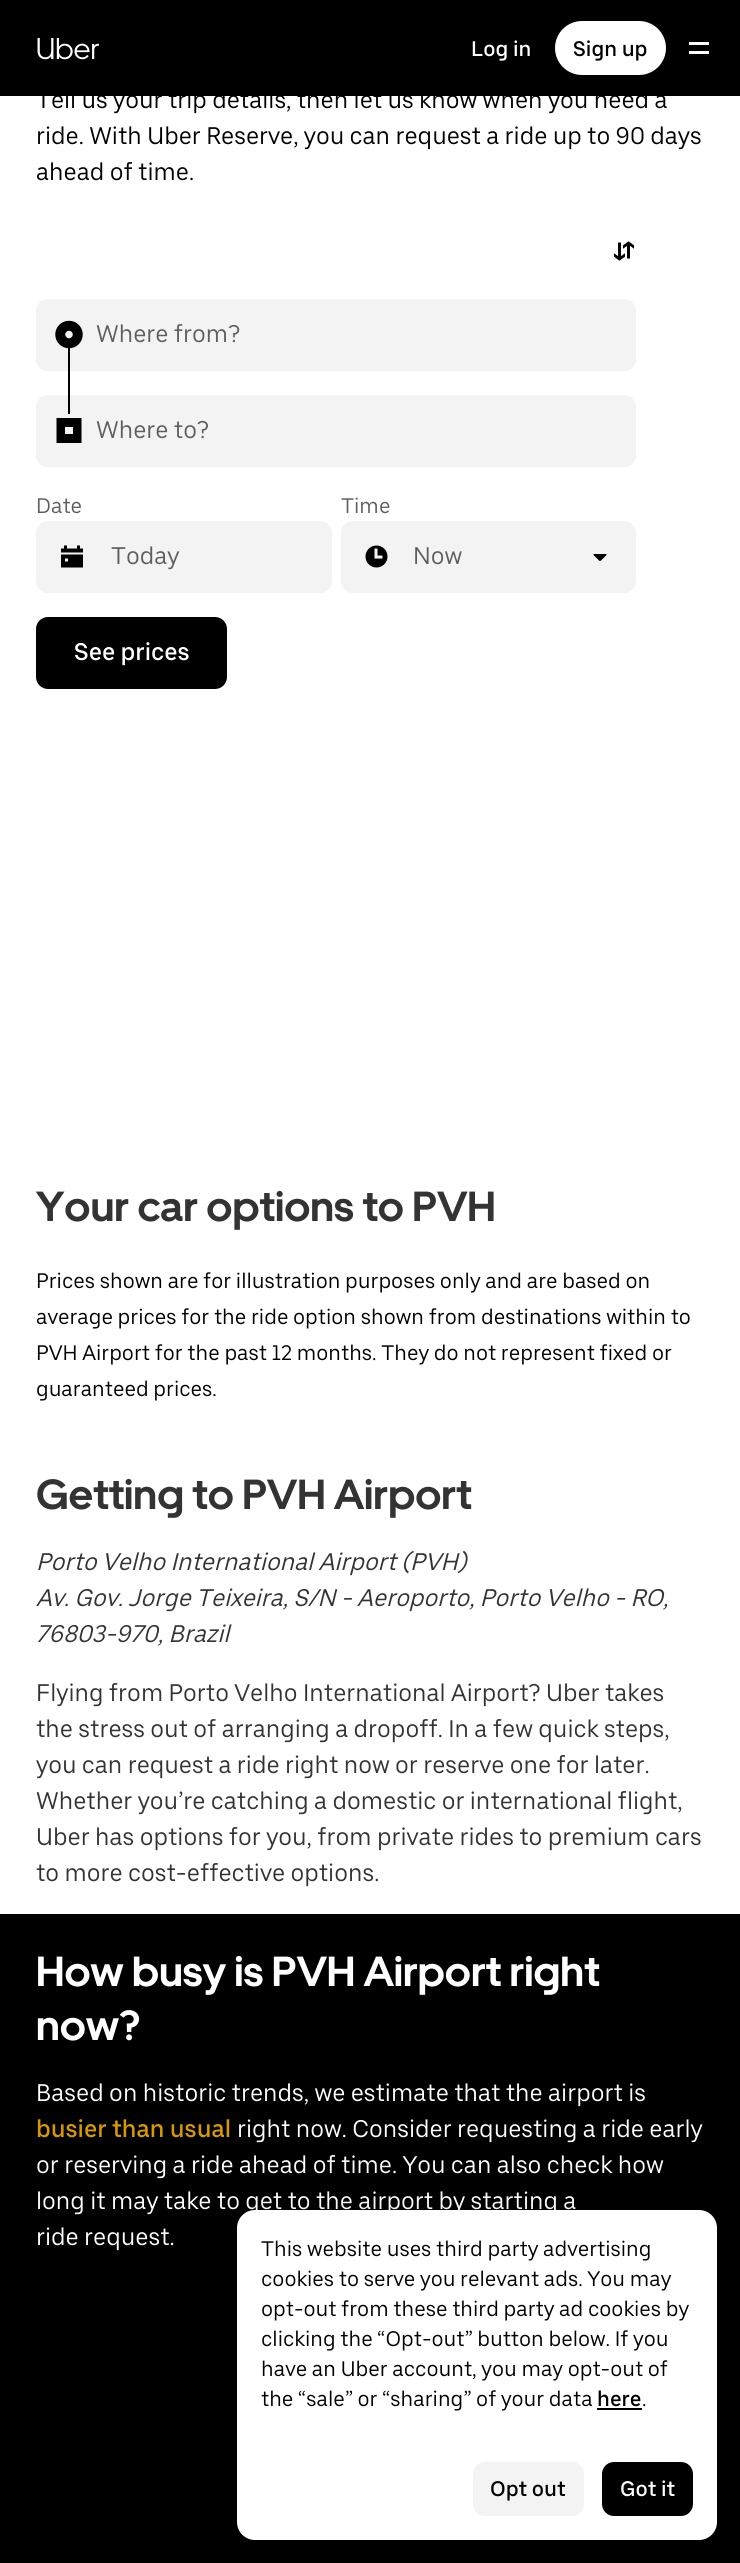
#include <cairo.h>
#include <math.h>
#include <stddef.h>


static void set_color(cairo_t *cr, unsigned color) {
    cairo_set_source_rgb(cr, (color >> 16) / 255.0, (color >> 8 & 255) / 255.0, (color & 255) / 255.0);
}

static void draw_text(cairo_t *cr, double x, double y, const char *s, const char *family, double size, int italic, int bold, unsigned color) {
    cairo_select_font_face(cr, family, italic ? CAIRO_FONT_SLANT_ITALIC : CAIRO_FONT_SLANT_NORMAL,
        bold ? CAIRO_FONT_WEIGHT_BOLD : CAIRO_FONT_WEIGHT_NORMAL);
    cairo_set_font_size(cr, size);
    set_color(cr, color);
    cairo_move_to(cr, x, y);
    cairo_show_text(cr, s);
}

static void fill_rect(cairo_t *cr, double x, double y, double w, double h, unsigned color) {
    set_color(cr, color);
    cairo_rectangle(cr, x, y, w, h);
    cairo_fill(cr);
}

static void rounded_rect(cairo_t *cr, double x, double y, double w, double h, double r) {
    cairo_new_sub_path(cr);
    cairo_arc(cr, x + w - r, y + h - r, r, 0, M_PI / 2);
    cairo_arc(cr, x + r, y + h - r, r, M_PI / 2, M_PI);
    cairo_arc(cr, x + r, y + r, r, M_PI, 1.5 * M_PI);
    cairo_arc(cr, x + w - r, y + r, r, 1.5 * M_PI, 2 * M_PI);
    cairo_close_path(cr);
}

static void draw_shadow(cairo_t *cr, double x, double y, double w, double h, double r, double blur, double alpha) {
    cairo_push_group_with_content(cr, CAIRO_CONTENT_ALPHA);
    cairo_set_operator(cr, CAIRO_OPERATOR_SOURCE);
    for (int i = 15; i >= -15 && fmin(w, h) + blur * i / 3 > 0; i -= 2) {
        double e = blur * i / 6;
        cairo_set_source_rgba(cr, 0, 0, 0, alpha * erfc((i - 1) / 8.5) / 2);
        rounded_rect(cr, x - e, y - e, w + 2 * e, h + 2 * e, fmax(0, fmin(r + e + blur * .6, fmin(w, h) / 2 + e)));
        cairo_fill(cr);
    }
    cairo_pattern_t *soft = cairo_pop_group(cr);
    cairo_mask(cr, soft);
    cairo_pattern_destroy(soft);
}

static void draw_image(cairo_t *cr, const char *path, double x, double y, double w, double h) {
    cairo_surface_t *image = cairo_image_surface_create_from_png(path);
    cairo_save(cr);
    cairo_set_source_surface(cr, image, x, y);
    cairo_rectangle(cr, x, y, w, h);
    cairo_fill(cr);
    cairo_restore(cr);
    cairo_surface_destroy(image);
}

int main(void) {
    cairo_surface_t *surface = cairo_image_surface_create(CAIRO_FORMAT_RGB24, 740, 2563);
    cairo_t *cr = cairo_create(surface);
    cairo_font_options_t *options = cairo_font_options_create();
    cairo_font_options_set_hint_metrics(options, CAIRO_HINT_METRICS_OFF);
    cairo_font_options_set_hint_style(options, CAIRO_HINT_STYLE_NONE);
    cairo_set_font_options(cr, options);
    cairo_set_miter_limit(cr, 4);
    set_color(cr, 0xFFFFFF);
    cairo_paint(cr);
    fill_rect(cr, 0, 0, 740, 96, 0x000000);
    draw_text(cr, 36, 59, "Uber", "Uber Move", 30, 0, 0, 0xFFFFFF);
    draw_text(cr, 471, 56, "Log in", "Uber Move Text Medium", 21, 0, 0, 0xFFFFFF);
    rounded_rect(cr, 555, 21, 111, 54, 27);
    cairo_fill(cr);
    draw_text(cr, 573, 56, "Sign up", "Uber Move Text Medium", 21, 0, 0, 0x000000);
    fill_rect(cr, 689, 42, 20, 3, 0xFFFFFF);
    fill_rect(cr, 689, 51, 20, 3, 0xFFFFFF);
    draw_text(cr, 36, 108, "Tell us your trip details, then let us know when you need a", "Uber Move Text", 24, 0, 0, 0x000000);
    draw_text(cr, 36, 144, "ride. With Uber Reserve, you can request a ride up to 90 days", "Uber Move Text", 24, 0, 0, 0x000000);
    draw_text(cr, 36, 180, "ahead of time.", "Uber Move Text", 24, 0, 0, 0x000000);
    draw_image(cr, "assets/img1.png", 614, 241, 20, 20);
    set_color(cr, 0xF3F3F3);
    rounded_rect(cr, 37.5, 300.5, 597, 69, 10.5);
    cairo_fill_preserve(cr);
    cairo_set_line_width(cr, 3);
    cairo_stroke(cr);
    draw_image(cr, "assets/img2.png", 55, 320, 28, 29);
    draw_text(cr, 96, 342, "Where from?", "Uber Move Text", 24, 0, 0, 0x5E5E5E);
    set_color(cr, 0xF3F3F3);
    rounded_rect(cr, 37.5, 396.5, 597, 69, 10.5);
    cairo_fill_preserve(cr);
    cairo_stroke(cr);
    fill_rect(cr, 68, 348, 2, 66, 0x000000);
    cairo_set_fill_rule(cr, CAIRO_FILL_RULE_EVEN_ODD);
    cairo_new_path(cr);
    cairo_move_to(cr, 81.5, 418);
    cairo_line_to(cr, 56.5, 418);
    cairo_line_to(cr, 56.5, 443);
    cairo_line_to(cr, 81.5, 443);
    cairo_close_path(cr);
    cairo_move_to(cr, 73, 427);
    cairo_line_to(cr, 65, 427);
    cairo_line_to(cr, 65, 434);
    cairo_line_to(cr, 73, 434);
    cairo_close_path(cr);
    cairo_fill(cr);
    draw_text(cr, 96, 438, "Where to?", "Uber Move Text", 24, 0, 0, 0x5E5E5E);
    draw_text(cr, 36, 513, "Date", "Uber Move Text", 21, 0, 0, 0x5E5E5E);
    set_color(cr, 0xF3F3F3);
    rounded_rect(cr, 37.5, 522.5, 293, 69, 10.5);
    cairo_fill_preserve(cr);
    cairo_stroke(cr);
    draw_image(cr, "assets/img3.png", 61, 545, 22, 23);
    draw_text(cr, 111, 564, "Today", "Uber Move Text", 24, 0, 0, 0x5E5E5E);
    draw_text(cr, 341, 513, "Time", "Uber Move Text", 21, 0, 0, 0x5E5E5E);
    set_color(cr, 0xF3F3F3);
    rounded_rect(cr, 342.5, 522.5, 292, 69, 10.5);
    cairo_fill_preserve(cr);
    cairo_stroke(cr);
    draw_image(cr, "assets/img4.png", 365, 545, 23, 23);
    draw_text(cr, 413, 564, "Now", "Uber Move Text", 24, 0, 0, 0x5E5E5E);
    draw_image(cr, "assets/img5.png", 593, 554, 14, 7);
    set_color(cr, 0x000000);
    rounded_rect(cr, 36, 617, 191, 72, 12);
    cairo_fill(cr);
    draw_text(cr, 74, 660, "See prices", "Uber Move Text Medium", 24, 0, 0, 0xFFFFFF);
    draw_text(cr, 36, 1221, "Your car options to PVH", "Uber Move", 42, 0, 1, 0x333333);
    draw_text(cr, 36, 1288, "Prices shown are for illustration purposes only and are based on", "Uber Move Text", 21, 0, 0, 0x000000);
    draw_text(cr, 36, 1324, "average prices for the ride option shown from destinations within to", "Uber Move Text", 21, 0, 0, 0x000000);
    draw_text(cr, 36, 1360, "PVH Airport for the past 12 months. They do not represent fixed or", "Uber Move Text", 21, 0, 0, 0x000000);
    draw_text(cr, 36, 1396, "guaranteed prices.", "Uber Move Text", 21, 0, 0, 0x000000);
    draw_text(cr, 36, 1509, "Getting to PVH Airport", "Uber Move", 42, 0, 1, 0x333333);
    draw_text(cr, 36, 1570, "Porto Velho International Airport (PVH)", "Uber Move Text", 24, 1, 0, 0x333333);
    draw_text(cr, 36, 1606, "Av. Gov. Jorge Teixeira, S/N - Aeroporto, Porto Velho - RO,", "Uber Move Text", 24, 1, 0, 0x333333);
    draw_text(cr, 36, 1642, "76803-970, Brazil", "Uber Move Text", 24, 1, 0, 0x333333);
    draw_text(cr, 36, 1701, "Flying from Porto Velho International Airport? Uber takes", "Uber Move Text", 24, 0, 0, 0x333333);
    draw_text(cr, 36, 1737, "the stress out of arranging a dropoff. In a few quick steps,", "Uber Move Text", 24, 0, 0, 0x333333);
    draw_text(cr, 36, 1773, "you can request a ride right now or reserve one for later.", "Uber Move Text", 24, 0, 0, 0x333333);
    draw_text(cr, 36, 1809, "Whether you’re catching a domestic or international flight,", "Uber Move Text", 24, 0, 0, 0x333333);
    draw_text(cr, 36, 1845, "Uber has options for you, from private rides to premium cars", "Uber Move Text", 24, 0, 0, 0x333333);
    draw_text(cr, 36, 1881, "to more cost-effective options.", "Uber Move Text", 24, 0, 0, 0x333333);
    fill_rect(cr, 0, 1914, 740, 649, 0x000000);
    draw_text(cr, 36, 1986, "How busy is PVH Airport right", "Uber Move", 42, 0, 1, 0xFFFFFF);
    draw_text(cr, 36, 2040, "now?", "Uber Move", 42, 0, 1, 0xFFFFFF);
    draw_text(cr, 36, 2101, "Based on historic trends, we estimate that the airport is", "Uber Move Text", 24, 0, 0, 0xFFFFFF);
    draw_text(cr, 36, 2137, "busier than usual", "Uber Move Text Medium", 24, 0, 0, 0xD79900);
    draw_text(cr, 237, 2137, "right now. Consider requesting a ride early", "Uber Move Text", 24, 0, 0, 0xFFFFFF);
    draw_text(cr, 36, 2173, "or reserving a ride ahead of time. You can also check how", "Uber Move Text", 24, 0, 0, 0xFFFFFF);
    draw_text(cr, 36, 2209, "long it may take to get to the airport by starting a", "Uber Move Text", 24, 0, 0, 0xFFFFFF);
    draw_text(cr, 36, 2245, "ride request.", "Uber Move Text", 24, 0, 0, 0xFFFFFF);
    set_color(cr, 0x000000);
    draw_shadow(cr, 237, 2216, 480, 330, 18, 12, 0.16);
    set_color(cr, 0xFFFFFF);
    rounded_rect(cr, 237, 2210, 480, 330, 18);
    cairo_fill(cr);
    draw_text(cr, 261, 2256, "This website uses third party advertising", "Uber Move Text", 21, 0, 0, 0x000000);
    draw_text(cr, 261, 2286, "cookies to serve you relevant ads. You may", "Uber Move Text", 21, 0, 0, 0x000000);
    draw_text(cr, 261, 2316, "opt-out from these third party ad cookies by", "Uber Move Text", 21, 0, 0, 0x000000);
    draw_text(cr, 261, 2346, "clicking the “Opt-out” button below. If you", "Uber Move Text", 21, 0, 0, 0x000000);
    draw_text(cr, 261, 2376, "have an Uber account, you may opt-out of", "Uber Move Text", 21, 0, 0, 0x000000);
    draw_text(cr, 261, 2406, "the “sale” or “sharing” of your data", "Uber Move Text", 21, 0, 0, 0x000000);
    draw_text(cr, 597, 2406, "here", "Uber Move Text Medium", 21, 0, 0, 0x000000);
    fill_rect(cr, 597, 2408, 45, 2, 0x000000);
    draw_text(cr, 642, 2406, ".", "Uber Move Text", 21, 0, 0, 0x000000);
    set_color(cr, 0xF3F3F3);
    rounded_rect(cr, 473, 2462, 111, 54, 12);
    cairo_fill(cr);
    draw_text(cr, 490, 2496, "Opt out", "Uber Move Text Medium", 21, 0, 0, 0x000000);
    rounded_rect(cr, 602, 2462, 91, 54, 12);
    cairo_fill(cr);
    draw_text(cr, 620, 2496, "Got it", "Uber Move Text Medium", 21, 0, 0, 0xFFFFFF);
    cairo_surface_write_to_png(surface, "output.png");
    cairo_font_options_destroy(options);
    cairo_destroy(cr);
    cairo_surface_destroy(surface);
    return 0;
}
